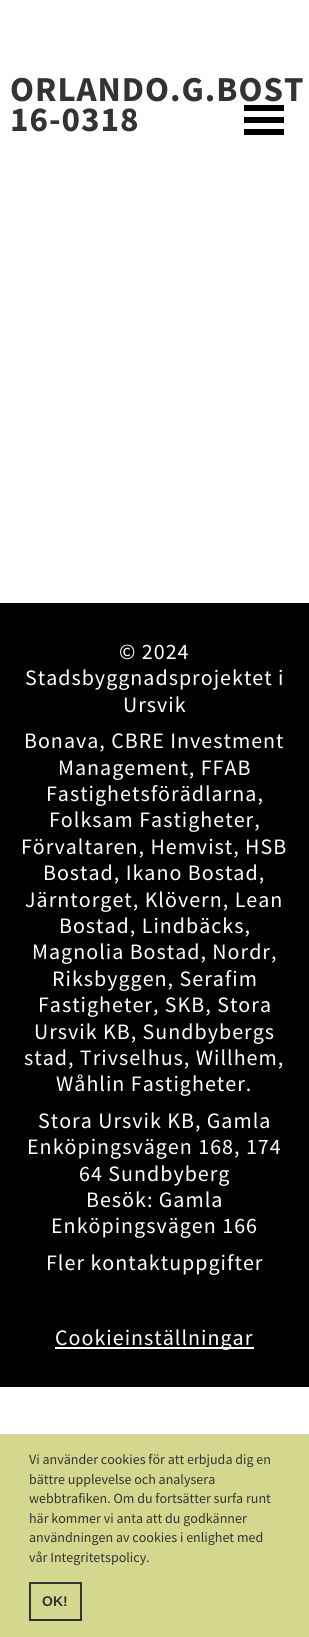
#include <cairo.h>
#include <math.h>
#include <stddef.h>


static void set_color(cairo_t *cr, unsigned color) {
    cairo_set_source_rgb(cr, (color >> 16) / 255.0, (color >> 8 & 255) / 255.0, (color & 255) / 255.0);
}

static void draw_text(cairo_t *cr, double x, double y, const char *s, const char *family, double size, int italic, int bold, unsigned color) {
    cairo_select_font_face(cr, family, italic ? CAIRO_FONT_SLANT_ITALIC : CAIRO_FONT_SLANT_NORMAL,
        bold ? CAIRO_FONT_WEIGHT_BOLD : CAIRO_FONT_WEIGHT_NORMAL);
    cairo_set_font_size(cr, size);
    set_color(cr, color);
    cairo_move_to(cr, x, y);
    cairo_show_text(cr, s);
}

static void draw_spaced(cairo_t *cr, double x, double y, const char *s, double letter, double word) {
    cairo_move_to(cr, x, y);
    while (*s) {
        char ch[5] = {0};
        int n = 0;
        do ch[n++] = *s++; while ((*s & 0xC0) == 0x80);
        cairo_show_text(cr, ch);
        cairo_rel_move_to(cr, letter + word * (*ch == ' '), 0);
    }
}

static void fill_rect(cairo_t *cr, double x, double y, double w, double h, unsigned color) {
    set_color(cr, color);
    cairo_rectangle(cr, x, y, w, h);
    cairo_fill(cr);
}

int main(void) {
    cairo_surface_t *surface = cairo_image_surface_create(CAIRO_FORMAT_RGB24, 309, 1637);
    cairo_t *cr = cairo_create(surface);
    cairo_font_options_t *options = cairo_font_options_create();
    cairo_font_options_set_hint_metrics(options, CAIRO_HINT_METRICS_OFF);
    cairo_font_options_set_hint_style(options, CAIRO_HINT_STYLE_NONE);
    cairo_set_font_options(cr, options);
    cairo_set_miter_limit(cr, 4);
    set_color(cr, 0xFFFFFF);
    cairo_paint(cr);
    cairo_select_font_face(cr, "Source Sans Pro", CAIRO_FONT_SLANT_NORMAL, CAIRO_FONT_WEIGHT_BOLD);
    cairo_set_font_size(cr, 35);
    set_color(cr, 0x333333);
    draw_spaced(cr, 10, 101, "ORLANDO.G.BOST", 1, 0);
    draw_spaced(cr, 10, 131, "16-0318", 1, 0);
    fill_rect(cr, 244, 105, 40, 6, 0x000000);
    fill_rect(cr, 244, 117, 40, 6, 0x000000);
    fill_rect(cr, 244, 129, 40, 6, 0x000000);
    fill_rect(cr, 0, 603, 309, 784, 0x000000);
    cairo_select_font_face(cr, "Source Sans Pro", CAIRO_FONT_SLANT_NORMAL, CAIRO_FONT_WEIGHT_NORMAL);
    cairo_set_font_size(cr, 22);
    set_color(cr, 0xFFFFFF);
    draw_spaced(cr, 119, 659, "© 2024", 1, 0);
    draw_spaced(cr, 25, 685, "Stadsbyggnadsprojektet i", 1, 0);
    draw_spaced(cr, 123, 712, "Ursvik", 1, 0);
    draw_spaced(cr, 24, 748, "Bonava, CBRE Investment", 1, 0);
    draw_spaced(cr, 58, 775, "Management, FFAB", 1, 0);
    draw_spaced(cr, 46, 801, "Fastighetsförädlarna,", 1, 0);
    draw_spaced(cr, 49, 827, "Folksam Fastigheter,", 1, 0);
    draw_spaced(cr, 21, 854, "Förvaltaren, Hemvist, HSB", 1, 0);
    draw_spaced(cr, 43, 880, "Bostad, Ikano Bostad,", 1, 0);
    draw_spaced(cr, 25, 907, "Järntorget, Klövern, Lean", 1, 0);
    draw_spaced(cr, 59, 933, "Bostad, Lindbäcks,", 1, 0);
    draw_spaced(cr, 32, 959, "Magnolia Bostad, Nordr,", 1, 0);
    draw_spaced(cr, 52, 986, "Riksbyggen, Serafim", 1, 0);
    draw_spaced(cr, 38, 1012, "Fastigheter, SKB, Stora", 1, 0);
    draw_spaced(cr, 34, 1039, "Ursvik KB, Sundbybergs", 1, 0);
    draw_spaced(cr, 24, 1065, "stad, Trivselhus, Willhem,", 1, 0);
    draw_spaced(cr, 56, 1091, "Wåhlin Fastigheter.", 1, 0);
    draw_spaced(cr, 38, 1128, "Stora Ursvik KB, Gamla", 1, 0);
    draw_spaced(cr, 27, 1154, "Enköpingsvägen 168, 174", 1, 0);
    draw_spaced(cr, 79, 1181, "64 Sundbyberg", 1, 0);
    draw_spaced(cr, 86, 1207, "Besök: Gamla", 1, 0);
    draw_spaced(cr, 51, 1233, "Enköpingsvägen 166", 1, 0);
    draw_spaced(cr, 46, 1270, "Fler kontaktuppgifter", 1, 0);
    fill_rect(cr, 55, 1347, 199, 2, 0xFFFFFF);
    draw_spaced(cr, 55, 1345, "Cookieinställningar", 1, 0);
    fill_rect(cr, 0, 1434, 309, 203, 0xD4D88E);
    draw_text(cr, 29, 1464, "Vi använder cookies för att erbjuda dig en", "Source Sans Pro", 14, 0, 0, 0x333333);
    draw_text(cr, 29, 1484, "bättre upplevelse och analysera", "Source Sans Pro", 14, 0, 0, 0x333333);
    draw_text(cr, 29, 1503, "webbtrafiken. Om du fortsätter surfa runt", "Source Sans Pro", 14, 0, 0, 0x333333);
    draw_text(cr, 29, 1523, "här kommer vi anta att du godkänner", "Source Sans Pro", 14, 0, 0, 0x333333);
    draw_text(cr, 29, 1542, "användningen av cookies i enlighet med", "Source Sans Pro", 14, 0, 0, 0x333333);
    draw_text(cr, 29, 1562, "vår Integritetspolicy.", "Source Sans Pro", 14, 0, 0, 0x333333);
    cairo_rectangle(cr, 30, 1583, 51, 37);
    cairo_stroke(cr);
    draw_text(cr, 42, 1606, "OK!", "Liberation Sans", 14, 0, 1, 0x333333);
    cairo_surface_write_to_png(surface, "output.png");
    cairo_font_options_destroy(options);
    cairo_destroy(cr);
    cairo_surface_destroy(surface);
    return 0;
}
